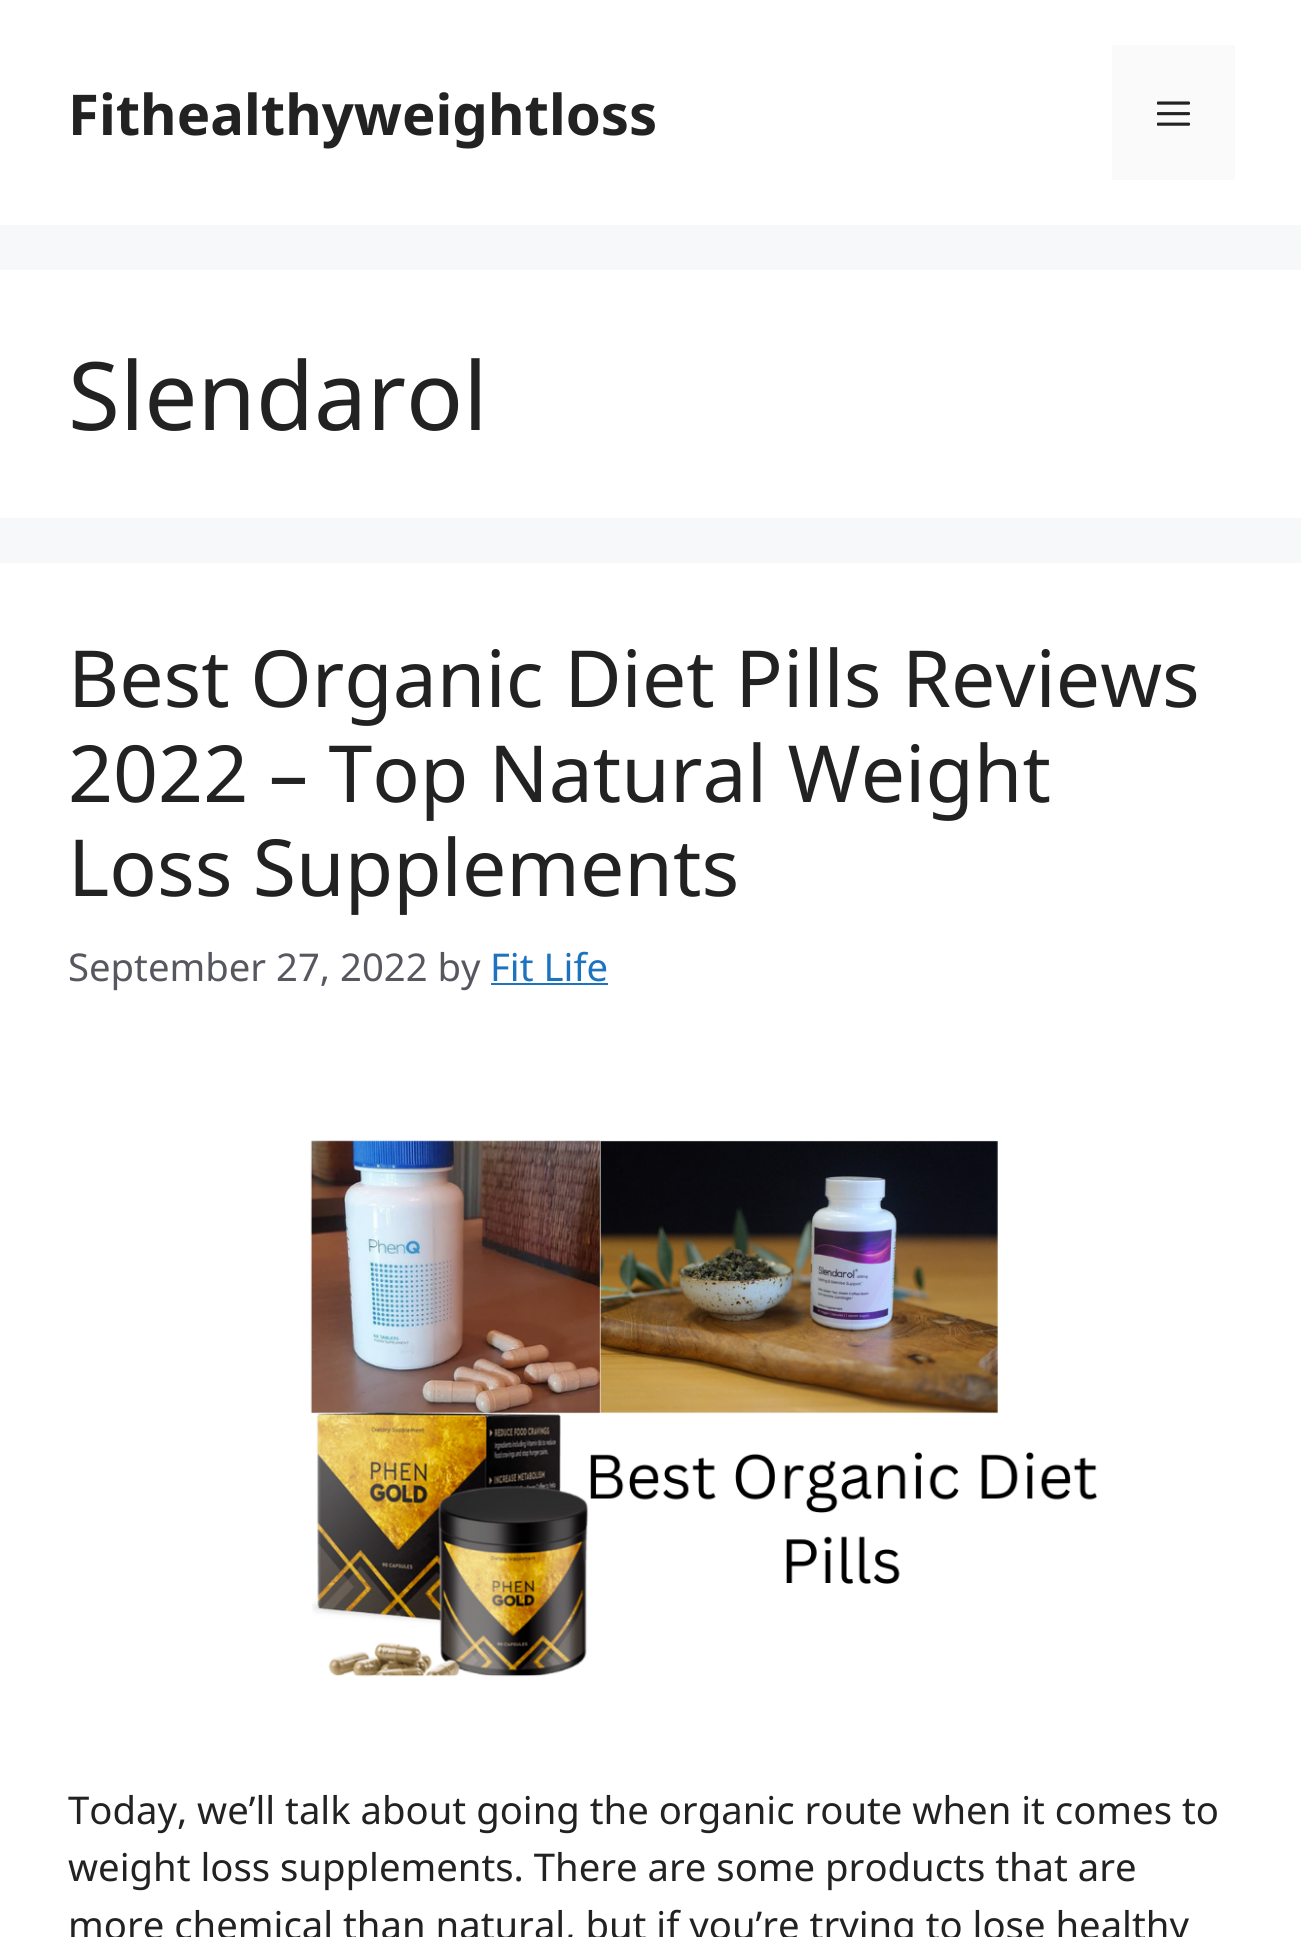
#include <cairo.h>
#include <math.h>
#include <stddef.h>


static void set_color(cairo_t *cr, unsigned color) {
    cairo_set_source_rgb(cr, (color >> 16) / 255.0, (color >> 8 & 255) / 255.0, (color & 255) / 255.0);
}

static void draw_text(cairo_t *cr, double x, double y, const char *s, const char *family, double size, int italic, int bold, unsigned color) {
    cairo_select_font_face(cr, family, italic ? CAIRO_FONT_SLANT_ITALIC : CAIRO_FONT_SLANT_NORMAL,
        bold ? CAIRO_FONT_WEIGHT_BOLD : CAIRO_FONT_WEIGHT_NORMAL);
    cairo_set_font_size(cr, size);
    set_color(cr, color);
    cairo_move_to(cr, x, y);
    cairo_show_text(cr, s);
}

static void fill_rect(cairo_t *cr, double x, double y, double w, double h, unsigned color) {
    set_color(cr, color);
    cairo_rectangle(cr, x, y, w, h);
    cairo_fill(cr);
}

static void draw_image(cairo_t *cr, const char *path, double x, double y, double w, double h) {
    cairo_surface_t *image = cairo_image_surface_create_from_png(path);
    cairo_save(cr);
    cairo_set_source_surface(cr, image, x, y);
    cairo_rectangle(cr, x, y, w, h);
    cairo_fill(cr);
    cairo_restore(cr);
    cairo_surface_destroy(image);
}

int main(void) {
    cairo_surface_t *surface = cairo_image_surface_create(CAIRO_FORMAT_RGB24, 1301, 1937);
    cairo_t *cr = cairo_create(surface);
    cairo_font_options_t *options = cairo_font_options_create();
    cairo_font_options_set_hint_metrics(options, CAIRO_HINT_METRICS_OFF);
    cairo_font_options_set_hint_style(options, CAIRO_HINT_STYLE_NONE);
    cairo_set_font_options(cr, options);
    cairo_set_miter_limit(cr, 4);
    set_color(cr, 0xF7F8F9);
    cairo_paint(cr);
    fill_rect(cr, 0, 0, 1301, 225, 0xFFFFFF);
    draw_text(cr, 68, 135, "Fithealthyweightloss", "Noto Sans", 56.25, 0, 1, 0x222222);
    fill_rect(cr, 1112, 45, 123, 135, 0xFAFAFA);
    draw_image(cr, "assets/img1.png", 1157, 101, 33, 25);
    fill_rect(cr, 0, 270, 1301, 248, 0xFFFFFF);
    draw_text(cr, 68, 430, "Slendarol", "Noto Sans", 94.5, 0, 0, 0x222222);
    fill_rect(cr, 0, 563, 1301, 1374, 0xFFFFFF);
    draw_text(cr, 68, 707, "Best Organic Diet Pills Reviews", "Noto Sans", 78.75, 0, 0, 0x222222);
    draw_text(cr, 68, 802, "2022 – Top Natural Weight", "Noto Sans", 78.75, 0, 0, 0x222222);
    draw_text(cr, 68, 896, "Loss Supplements", "Noto Sans", 78.75, 0, 0, 0x222222);
    draw_text(cr, 68, 981, "September 27, 2022 by", "Noto Sans", 38.25, 0, 0, 0x575760);
    draw_text(cr, 490, 981, "Fit Life", "Noto Sans", 38.25, 0, 0, 0x1E73BE);
    fill_rect(cr, 491, 983, 117, 2, 0x1E73BE);
    draw_image(cr, "assets/img2.png", 310, 1140, 788, 537);
    draw_text(cr, 68, 1824, "Today, we’ll talk about going the organic route when it comes to", "Noto Sans", 38.25, 0, 0, 0x222222);
    draw_text(cr, 68, 1881, "weight loss supplements. There are some products that are", "Noto Sans", 38.25, 0, 0, 0x222222);
    draw_text(cr, 68, 1939, "more chemical than natural, but if you’re trying to lose healthy", "Noto Sans", 38.25, 0, 0, 0x222222);
    cairo_surface_write_to_png(surface, "output.png");
    cairo_font_options_destroy(options);
    cairo_destroy(cr);
    cairo_surface_destroy(surface);
    return 0;
}
